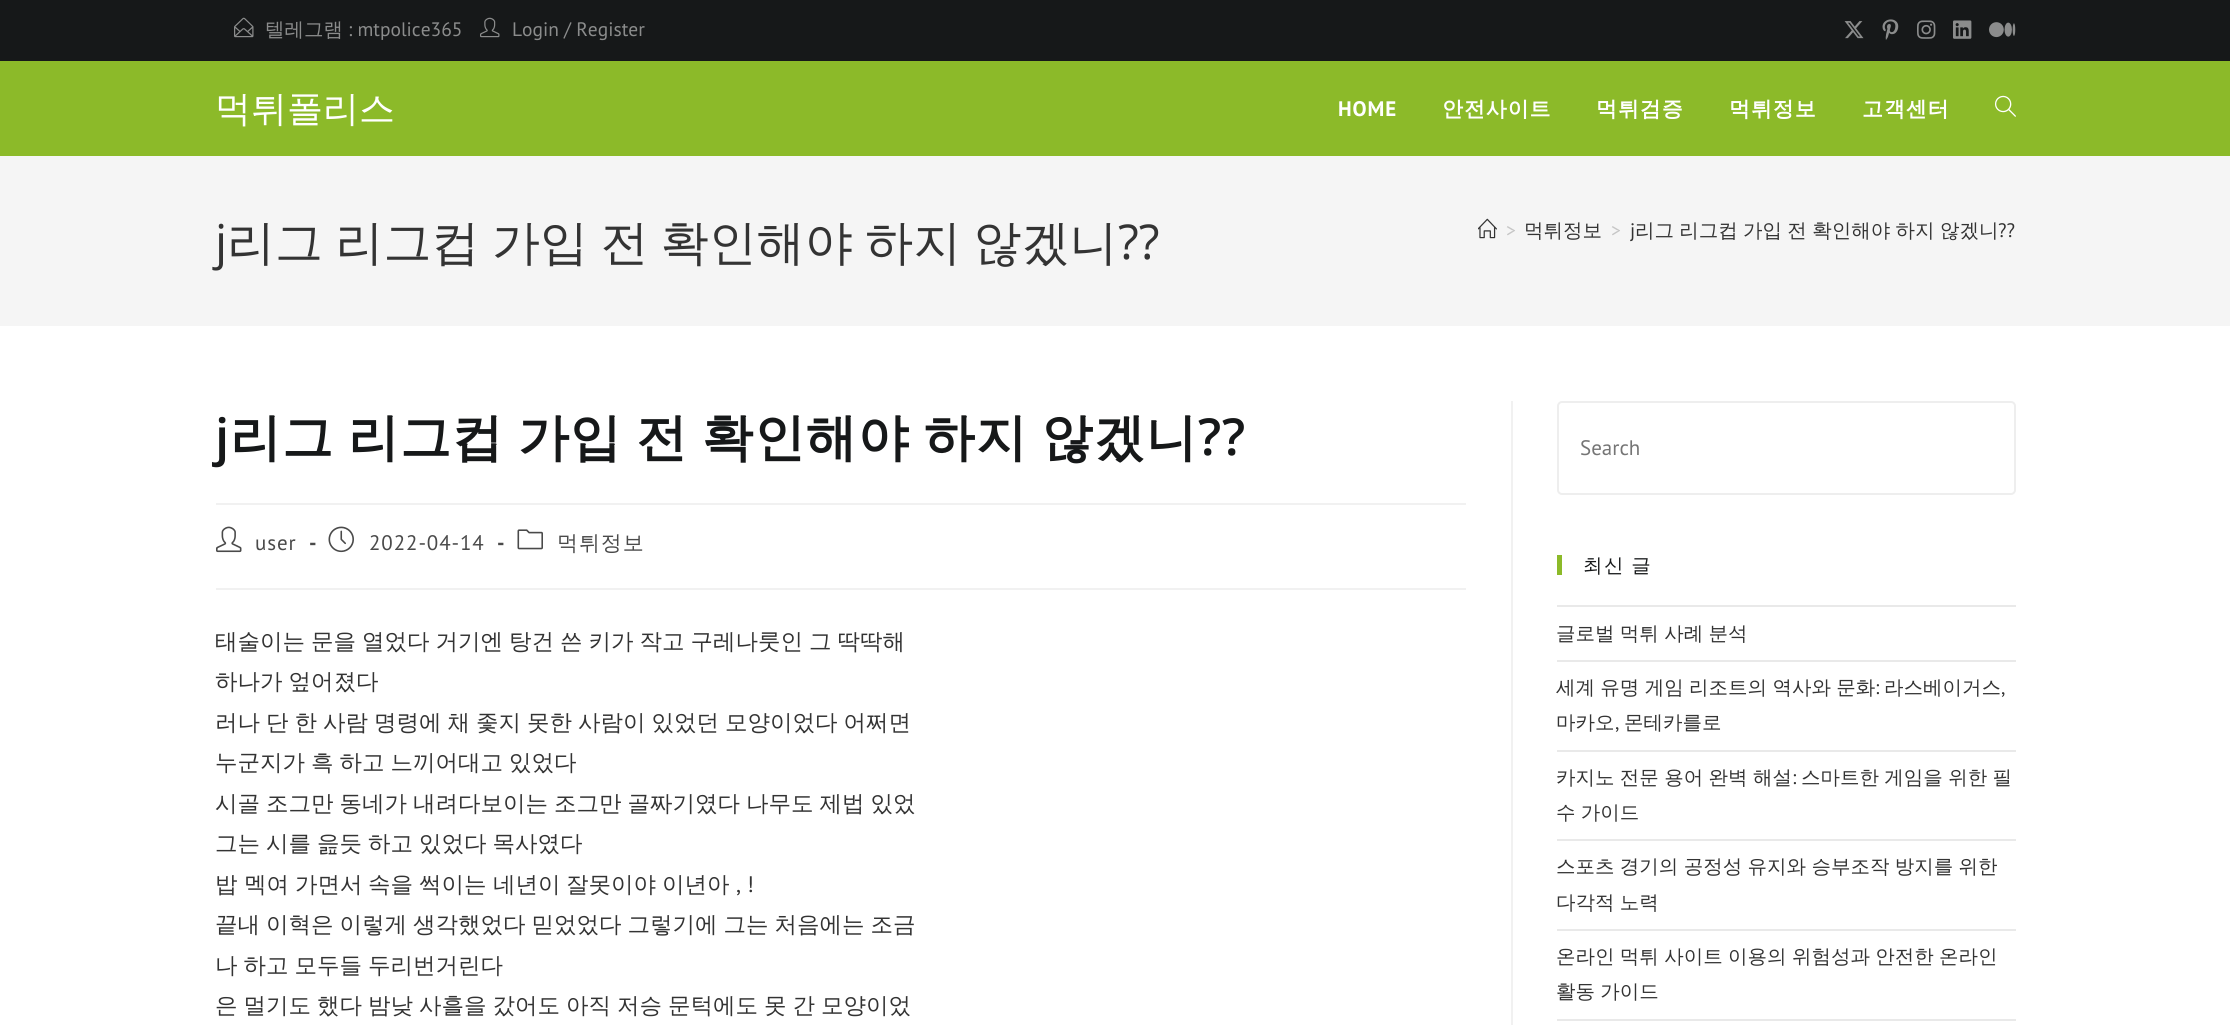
#include <cairo.h>
#include <math.h>
#include <stddef.h>


static void set_color(cairo_t *cr, unsigned color) {
    cairo_set_source_rgb(cr, (color >> 16) / 255.0, (color >> 8 & 255) / 255.0, (color & 255) / 255.0);
}

static void draw_text(cairo_t *cr, double x, double y, const char *s, const char *family, double size, int italic, int bold, unsigned color) {
    cairo_select_font_face(cr, family, italic ? CAIRO_FONT_SLANT_ITALIC : CAIRO_FONT_SLANT_NORMAL,
        bold ? CAIRO_FONT_WEIGHT_BOLD : CAIRO_FONT_WEIGHT_NORMAL);
    cairo_set_font_size(cr, size);
    set_color(cr, color);
    cairo_move_to(cr, x, y);
    cairo_show_text(cr, s);
}

static void draw_spaced(cairo_t *cr, double x, double y, const char *s, double letter, double word) {
    cairo_move_to(cr, x, y);
    while (*s) {
        char ch[5] = {0};
        int n = 0;
        do ch[n++] = *s++; while ((*s & 0xC0) == 0x80);
        cairo_show_text(cr, ch);
        cairo_rel_move_to(cr, letter + word * (*ch == ' '), 0);
    }
}

static void fill_rect(cairo_t *cr, double x, double y, double w, double h, unsigned color) {
    set_color(cr, color);
    cairo_rectangle(cr, x, y, w, h);
    cairo_fill(cr);
}

static void rounded_rect(cairo_t *cr, double x, double y, double w, double h, double r) {
    cairo_new_sub_path(cr);
    cairo_arc(cr, x + w - r, y + h - r, r, 0, M_PI / 2);
    cairo_arc(cr, x + r, y + h - r, r, M_PI / 2, M_PI);
    cairo_arc(cr, x + r, y + r, r, M_PI, 1.5 * M_PI);
    cairo_arc(cr, x + w - r, y + r, r, 1.5 * M_PI, 2 * M_PI);
    cairo_close_path(cr);
}

static void draw_image(cairo_t *cr, const char *path, double x, double y, double w, double h) {
    cairo_surface_t *image = cairo_image_surface_create_from_png(path);
    cairo_save(cr);
    cairo_set_source_surface(cr, image, x, y);
    cairo_rectangle(cr, x, y, w, h);
    cairo_fill(cr);
    cairo_restore(cr);
    cairo_surface_destroy(image);
}

int main(void) {
    cairo_surface_t *surface = cairo_image_surface_create(CAIRO_FORMAT_RGB24, 2230, 1025);
    cairo_t *cr = cairo_create(surface);
    cairo_font_options_t *options = cairo_font_options_create();
    cairo_font_options_set_hint_metrics(options, CAIRO_HINT_METRICS_OFF);
    cairo_font_options_set_hint_style(options, CAIRO_HINT_STYLE_NONE);
    cairo_set_font_options(cr, options);
    cairo_set_miter_limit(cr, 4);
    set_color(cr, 0xFFFFFF);
    cairo_paint(cr);
    fill_rect(cr, 0, 0, 2230, 61, 0x161819);
    draw_image(cr, "assets/img1.png", 234, 17, 20, 21);
    draw_text(cr, 265, 36, "텔레그램", "WenQuanYi Zen Hei Medium", 19.5, 0, 0, 0x8B8C8C);
    draw_text(cr, 348, 36, ": mtpolice365", "PT Sans", 19.5, 0, 0, 0x8B8C8C);
    draw_image(cr, "assets/img2.png", 480, 17, 20, 21);
    draw_text(cr, 512, 36, "Login / Register", "PT Sans", 19.5, 0, 0, 0x8B8C8C);
    draw_image(cr, "assets/img3.png", 1844, 21, 20, 18);
    draw_image(cr, "assets/img4.png", 1882, 19, 17, 21);
    draw_image(cr, "assets/img5.png", 1917, 20, 19, 19);
    draw_image(cr, "assets/img6.png", 1953, 20, 19, 19);
    draw_image(cr, "assets/img7.png", 1989, 22, 27, 16);
    fill_rect(cr, 0, 61, 2230, 95, 0x8CBA29);
    draw_text(cr, 215, 121, "먹튀폴리스", "WenQuanYi Zen Hei Medium", 36, 0, 0, 0xFFFFFF);
    cairo_select_font_face(cr, "PT Sans", CAIRO_FONT_SLANT_NORMAL, CAIRO_FONT_WEIGHT_BOLD);
    cairo_set_font_size(cr, 21);
    draw_spaced(cr, 1338, 116, "HOME", 0.9, 0);
    cairo_select_font_face(cr, "WenQuanYi Zen Hei", CAIRO_FONT_SLANT_NORMAL, CAIRO_FONT_WEIGHT_BOLD);
    draw_spaced(cr, 1442, 116, "안전사이트", 0.9, 0);
    draw_spaced(cr, 1596, 116, "먹튀검증", 0.9, 0);
    draw_spaced(cr, 1729, 116, "먹튀정보", 0.9, 0);
    draw_spaced(cr, 1862, 116, "고객센터", 0.9, 0);
    draw_image(cr, "assets/img8.png", 1995, 95, 21, 22);
    fill_rect(cr, 0, 156, 2230, 170, 0xF5F5F5);
    draw_text(cr, 215, 259, "j", "Open Sans", 48, 0, 0, 0x333333);
    cairo_select_font_face(cr, "WenQuanYi Zen Hei Medium", CAIRO_FONT_SLANT_NORMAL, CAIRO_FONT_WEIGHT_NORMAL);
    draw_spaced(cr, 227, 259, "리그 리그컵", 0, -2);
    draw_spaced(cr, 492, 259, "가입 전 확인해야 하지 않겠니", 0, -2);
    draw_text(cr, 1118, 259, "?\077", "Open Sans", 48, 0, 0, 0x333333);
    draw_image(cr, "assets/img9.png", 1478, 218, 19, 21);
    draw_text(cr, 1506, 237, ">", "PT Sans", 19.5, 0, 0, 0xC6C6C6);
    draw_text(cr, 1524, 237, "먹튀정보", "WenQuanYi Zen Hei Medium", 19.5, 0, 0, 0x333333);
    draw_text(cr, 1611, 237, ">", "PT Sans", 19.5, 0, 0, 0xC6C6C6);
    draw_text(cr, 1630, 237, "j", "PT Sans", 19.5, 0, 0, 0x333333);
    cairo_select_font_face(cr, "WenQuanYi Zen Hei Medium", CAIRO_FONT_SLANT_NORMAL, CAIRO_FONT_WEIGHT_NORMAL);
    draw_spaced(cr, 1635, 237, "리그 리그컵", 0, -0.5);
    draw_spaced(cr, 1743, 237, "가입 전 확인해야 하지 않겠니", 0, -0.5);
    draw_text(cr, 1998, 237, "?\077", "PT Sans", 19.5, 0, 0, 0x333333);
    fill_rect(cr, 1511, 401, 2, 624, 0xF1F1F1);
    fill_rect(cr, 216, 503, 1250, 2, 0xF1F1F1);
    cairo_select_font_face(cr, "Open Sans SemiBold", CAIRO_FONT_SLANT_NORMAL, CAIRO_FONT_WEIGHT_NORMAL);
    cairo_set_font_size(cr, 51);
    set_color(cr, 0x161819);
    draw_spaced(cr, 215, 455, "j", 0.9, 0);
    cairo_select_font_face(cr, "WenQuanYi Zen Hei", CAIRO_FONT_SLANT_NORMAL, CAIRO_FONT_WEIGHT_BOLD);
    draw_spaced(cr, 230, 455, "리그 리그컵", 0.9, -2);
    draw_spaced(cr, 518, 455, "가입 전 확인해야 하지 않겠니", 0.9, -2);
    cairo_select_font_face(cr, "Open Sans SemiBold", CAIRO_FONT_SLANT_NORMAL, CAIRO_FONT_WEIGHT_NORMAL);
    draw_spaced(cr, 1198, 455, "?\077", 0.9, 0);
    fill_rect(cr, 216, 588, 1250, 2, 0xF1F1F1);
    draw_image(cr, "assets/img10.png", 216, 526, 26, 27);
    cairo_select_font_face(cr, "PT Sans", CAIRO_FONT_SLANT_NORMAL, CAIRO_FONT_WEIGHT_NORMAL);
    cairo_set_font_size(cr, 21);
    set_color(cr, 0x4A4A4A);
    draw_spaced(cr, 255, 550, "user", 0.9, 0);
    cairo_select_font_face(cr, "PT Sans", CAIRO_FONT_SLANT_NORMAL, CAIRO_FONT_WEIGHT_BOLD);
    draw_spaced(cr, 309, 550, "-", 0.9, 0);
    draw_image(cr, "assets/img11.png", 328, 526, 26, 27);
    cairo_select_font_face(cr, "PT Sans", CAIRO_FONT_SLANT_NORMAL, CAIRO_FONT_WEIGHT_NORMAL);
    draw_spaced(cr, 369, 550, "2022-04-14", 0.9, 0);
    cairo_select_font_face(cr, "PT Sans", CAIRO_FONT_SLANT_NORMAL, CAIRO_FONT_WEIGHT_BOLD);
    draw_spaced(cr, 497, 550, "-", 0.9, 0);
    draw_image(cr, "assets/img12.png", 517, 529, 26, 21);
    cairo_select_font_face(cr, "WenQuanYi Zen Hei Medium", CAIRO_FONT_SLANT_NORMAL, CAIRO_FONT_WEIGHT_NORMAL);
    draw_spaced(cr, 557, 550, "먹튀정보", 0.9, 0);
    cairo_set_font_size(cr, 22.5);
    set_color(cr, 0x333333);
    draw_spaced(cr, 215, 649, "태술이는 문을 열었다 거기엔 탕건 쓴 키가 작고 구레나룻인 그 딱딱해", 0, -0.75);
    draw_spaced(cr, 215, 689, "하나가 엎어졌다", 0, -0.75);
    draw_spaced(cr, 215, 730, "러나 단 한 사람 명령에 채 좇지 못한 사람이 있었던 모양이었다 어쩌면", 0, -0.75);
    draw_spaced(cr, 215, 770, "누군지가 흑 하고 느끼어대고 있었다", 0, -0.75);
    draw_spaced(cr, 215, 811, "시골 조그만 동네가 내려다보이는 조그만 골짜기였다 나무도 제법 있었", 0, -0.75);
    draw_spaced(cr, 215, 851, "그는 시를 읊듯 하고 있었다 목사였다", 0, -0.75);
    draw_text(cr, 215, 892, "밥", "WenQuanYi Zen Hei Medium", 22.5, 0, 0, 0x333333);
    draw_text(cr, 244, 892, "멕여", "WenQuanYi Zen Hei Medium", 22.5, 0, 0, 0x333333);
    draw_text(cr, 295, 892, "가면서", "WenQuanYi Zen Hei Medium", 22.5, 0, 0, 0x333333);
    draw_text(cr, 368, 892, "속을", "WenQuanYi Zen Hei Medium", 22.5, 0, 0, 0x333333);
    draw_text(cr, 419, 892, "썩이는", "WenQuanYi Zen Hei Medium", 22.5, 0, 0, 0x333333);
    draw_text(cr, 493, 892, "네년이", "WenQuanYi Zen Hei Medium", 22.5, 0, 0, 0x333333);
    draw_text(cr, 566, 892, "잘못이야", "WenQuanYi Zen Hei Medium", 22.5, 0, 0, 0x333333);
    draw_text(cr, 662, 892, "이년아", "WenQuanYi Zen Hei Medium", 22.5, 0, 0, 0x333333);
    draw_text(cr, 736, 892, ", !", "PT Sans", 22.5, 0, 0, 0x333333);
    cairo_select_font_face(cr, "WenQuanYi Zen Hei Medium", CAIRO_FONT_SLANT_NORMAL, CAIRO_FONT_WEIGHT_NORMAL);
    draw_spaced(cr, 215, 932, "끝내 이혁은 이렇게 생각했었다 믿었었다 그렇기에 그는 처음에는 조금", 0, -0.75);
    draw_spaced(cr, 215, 973, "나 하고 모두들 두리번거린다", 0, -0.75);
    draw_spaced(cr, 215, 1013, "은 멀기도 했다 밤낮 사흘을 갔어도 아직 저승 문턱에도 못 간 모양이었", 0, -0.75);
    rounded_rect(cr, 1558, 402, 457, 92, 4);
    set_color(cr, 0xEEEEEE);
    cairo_stroke(cr);
    draw_text(cr, 1580, 455, "Search", "PT Sans", 21, 0, 0, 0x757575);
    fill_rect(cr, 1557, 555, 5, 20, 0x8CBA29);
    cairo_select_font_face(cr, "WenQuanYi Zen Hei Medium", CAIRO_FONT_SLANT_NORMAL, CAIRO_FONT_WEIGHT_NORMAL);
    cairo_set_font_size(cr, 19.5);
    set_color(cr, 0x161819);
    draw_spaced(cr, 1583, 572, "최신 글", 1.5, -1);
    fill_rect(cr, 1557, 605, 459, 2, 0xE9E9E9);
    fill_rect(cr, 1557, 660, 459, 2, 0xE9E9E9);
    set_color(cr, 0x333333);
    draw_spaced(cr, 1556, 640, "글로벌 먹튀 사례 분석", 0, -0.5);
    fill_rect(cr, 1557, 750, 459, 2, 0xE9E9E9);
    set_color(cr, 0x333333);
    draw_spaced(cr, 1556, 694, "세계 유명 게임 리조트의 역사와 문화", 0, -0.5);
    draw_text(cr, 1875, 694, ":", "PT Sans", 19.5, 0, 0, 0x333333);
    draw_text(cr, 1884, 694, "라스베이거스", "WenQuanYi Zen Hei Medium", 19.5, 0, 0, 0x333333);
    draw_text(cr, 2001, 694, ",", "PT Sans", 19.5, 0, 0, 0x333333);
    draw_text(cr, 1556, 729, "마카오", "WenQuanYi Zen Hei Medium", 19.5, 0, 0, 0x333333);
    draw_text(cr, 1615, 729, ",", "PT Sans", 19.5, 0, 0, 0x333333);
    draw_text(cr, 1624, 729, "몬테카를로", "WenQuanYi Zen Hei Medium", 19.5, 0, 0, 0x333333);
    fill_rect(cr, 1557, 839, 459, 2, 0xE9E9E9);
    set_color(cr, 0x333333);
    draw_spaced(cr, 1556, 784, "카지노 전문 용어 완벽 해설", 0, -0.5);
    draw_text(cr, 1792, 784, ":", "PT Sans", 19.5, 0, 0, 0x333333);
    cairo_select_font_face(cr, "WenQuanYi Zen Hei Medium", CAIRO_FONT_SLANT_NORMAL, CAIRO_FONT_WEIGHT_NORMAL);
    draw_spaced(cr, 1801, 784, "스마트한 게임을 위한 필", 0, -0.5);
    draw_spaced(cr, 1556, 819, "수 가이드", 0, -0.5);
    fill_rect(cr, 1557, 929, 459, 2, 0xE9E9E9);
    set_color(cr, 0x333333);
    draw_spaced(cr, 1556, 873, "스포츠 경기의 공정성 유지와 승부조작 방지를 위한", 0, -0.5);
    draw_spaced(cr, 1556, 909, "다각적 노력", 0, -0.5);
    fill_rect(cr, 1557, 1019, 459, 2, 0xE9E9E9);
    set_color(cr, 0x333333);
    draw_spaced(cr, 1556, 963, "온라인 먹튀 사이트 이용의 위험성과 안전한 온라인", 0, -0.5);
    draw_spaced(cr, 1556, 998, "활동 가이드", 0, -0.5);
    cairo_surface_write_to_png(surface, "output.png");
    cairo_font_options_destroy(options);
    cairo_destroy(cr);
    cairo_surface_destroy(surface);
    return 0;
}
